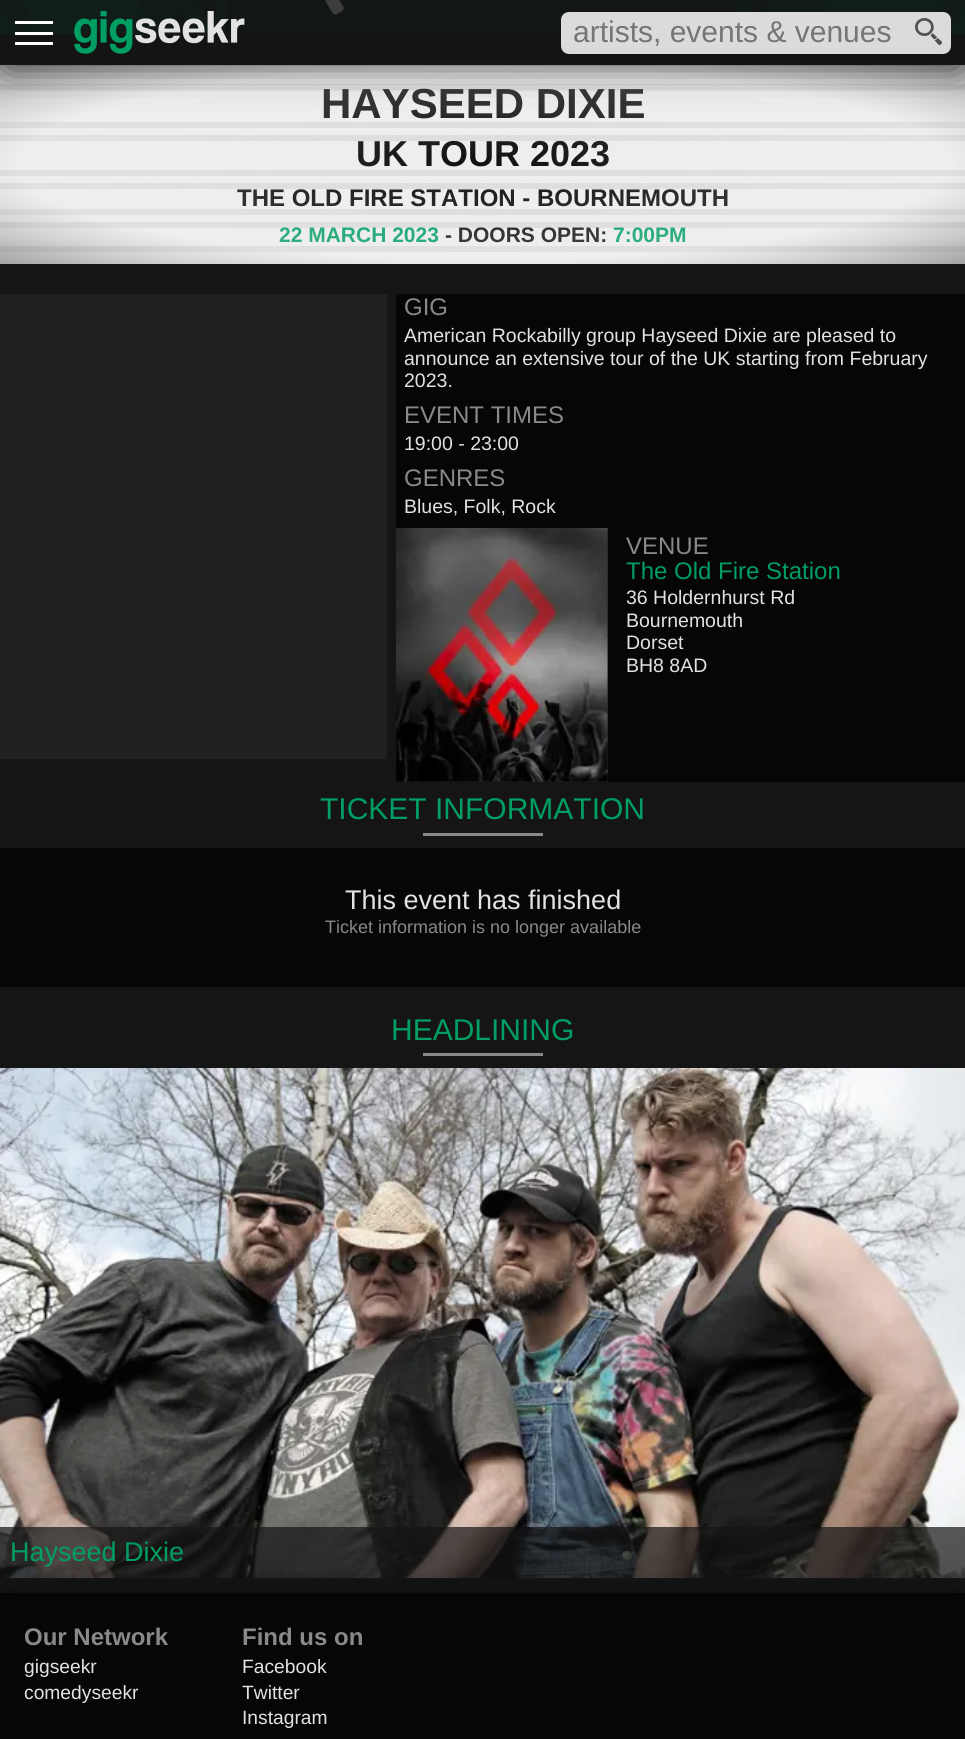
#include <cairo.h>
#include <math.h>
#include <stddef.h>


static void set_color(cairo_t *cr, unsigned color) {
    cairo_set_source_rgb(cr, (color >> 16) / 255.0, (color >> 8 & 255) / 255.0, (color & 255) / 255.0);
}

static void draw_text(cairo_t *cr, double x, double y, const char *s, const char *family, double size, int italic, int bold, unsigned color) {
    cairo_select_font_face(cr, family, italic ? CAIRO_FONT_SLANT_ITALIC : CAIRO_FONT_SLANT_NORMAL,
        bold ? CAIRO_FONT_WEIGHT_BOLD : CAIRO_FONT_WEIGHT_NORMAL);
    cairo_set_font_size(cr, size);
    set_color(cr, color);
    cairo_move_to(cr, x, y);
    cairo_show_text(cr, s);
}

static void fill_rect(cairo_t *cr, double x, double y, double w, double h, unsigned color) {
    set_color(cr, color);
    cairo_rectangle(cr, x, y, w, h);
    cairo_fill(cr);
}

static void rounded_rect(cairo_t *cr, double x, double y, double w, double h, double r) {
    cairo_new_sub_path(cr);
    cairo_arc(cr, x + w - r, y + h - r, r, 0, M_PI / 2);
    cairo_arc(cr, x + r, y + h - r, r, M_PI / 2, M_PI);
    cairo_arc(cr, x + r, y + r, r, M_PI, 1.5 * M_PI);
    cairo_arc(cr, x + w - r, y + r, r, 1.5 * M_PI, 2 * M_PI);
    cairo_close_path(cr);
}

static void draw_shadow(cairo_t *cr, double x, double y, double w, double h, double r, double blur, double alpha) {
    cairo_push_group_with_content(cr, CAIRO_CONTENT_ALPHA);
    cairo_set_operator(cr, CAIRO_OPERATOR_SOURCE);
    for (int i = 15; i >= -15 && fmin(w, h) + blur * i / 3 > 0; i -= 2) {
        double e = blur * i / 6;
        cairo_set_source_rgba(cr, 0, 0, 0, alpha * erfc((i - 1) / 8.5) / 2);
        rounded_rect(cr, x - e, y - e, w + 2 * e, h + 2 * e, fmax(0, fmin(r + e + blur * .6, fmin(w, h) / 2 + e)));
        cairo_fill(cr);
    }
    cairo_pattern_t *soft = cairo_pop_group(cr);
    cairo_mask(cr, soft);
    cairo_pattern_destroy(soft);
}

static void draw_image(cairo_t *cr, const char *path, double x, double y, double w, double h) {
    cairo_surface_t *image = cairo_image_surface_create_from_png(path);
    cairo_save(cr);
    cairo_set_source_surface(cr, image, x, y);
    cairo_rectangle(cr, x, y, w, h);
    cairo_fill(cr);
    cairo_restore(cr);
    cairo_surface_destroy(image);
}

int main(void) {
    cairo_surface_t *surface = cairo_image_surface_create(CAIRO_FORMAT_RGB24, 965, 1739);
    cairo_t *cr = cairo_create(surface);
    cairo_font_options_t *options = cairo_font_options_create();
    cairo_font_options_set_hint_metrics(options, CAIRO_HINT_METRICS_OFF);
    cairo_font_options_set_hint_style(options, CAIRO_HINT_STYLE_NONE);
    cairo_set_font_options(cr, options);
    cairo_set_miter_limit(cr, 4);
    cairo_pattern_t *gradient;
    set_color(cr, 0x151515);
    cairo_paint(cr);
    draw_image(cr, "assets/img1.png", 0, 0, 965, 35);
    draw_image(cr, "assets/img2.png", 325, 0, 19, 15);
    fill_rect(cr, 0, 65, 965, 199, 0xEEEEEE);
    fill_rect(cr, 0, 84, 965, 6, 0xDDDDDD);
    fill_rect(cr, 0, 122, 965, 6, 0xDDDDDD);
    draw_text(cr, 321, 118, "HAYSEED DIXIE", "Liberation Sans", 42, 0, 1, 0x101010);
    fill_rect(cr, 0, 135, 965, 6, 0xDDDDDD);
    fill_rect(cr, 0, 170, 965, 6, 0xDDDDDD);
    draw_text(cr, 356, 166, "UK TOUR 2023", "Liberation Sans", 36, 0, 1, 0x101010);
    fill_rect(cr, 0, 183, 965, 6, 0xDDDDDD);
    fill_rect(cr, 0, 209, 965, 6, 0xDDDDDD);
    draw_text(cr, 237, 206, "THE OLD FIRE STATION - BOURNEMOUTH", "Liberation Sans", 24, 0, 1, 0x101010);
    fill_rect(cr, 0, 222, 965, 6, 0xDDDDDD);
    fill_rect(cr, 0, 246, 965, 6, 0xDDDDDD);
    draw_text(cr, 279, 242, "22 MARCH 2023", "Liberation Sans", 21, 0, 1, 0x009E63);
    draw_text(cr, 445, 242, "- DOORS OPEN:", "Liberation Sans", 21, 0, 1, 0x101010);
    draw_text(cr, 613, 242, "7:00PM", "Liberation Sans", 21, 0, 1, 0x009E63);
    gradient = cairo_pattern_create_radial(0, 0, 0, 0, 0, 1);
    cairo_pattern_set_matrix(gradient, &(cairo_matrix_t){1.0 / 683, 0, 0, 1.0 / 141, -1.0 * 483 / 683, -1.0 * 164 / 141});
    cairo_pattern_add_color_stop_rgba(gradient, 0, 0.933, 0.933, 0.933, 0);
    cairo_pattern_add_color_stop_rgba(gradient, 0.68, 0.933, 0.933, 0.933, 0.23);
    cairo_pattern_add_color_stop_rgba(gradient, 1, 0.063, 0.063, 0.063, 0.34);
    cairo_set_source(cr, gradient);
    cairo_pattern_destroy(gradient);
    cairo_rectangle(cr, 0, 65, 965, 199);
    cairo_fill(cr);
    cairo_save(cr);
    cairo_set_fill_rule(cr, CAIRO_FILL_RULE_EVEN_ODD);
    cairo_new_path(cr);
    cairo_move_to(cr, 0, 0);
    cairo_line_to(cr, 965, 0);
    cairo_line_to(cr, 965, 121);
    cairo_line_to(cr, 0, 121);
    cairo_close_path(cr);
    cairo_move_to(cr, 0, 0);
    cairo_line_to(cr, 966, 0);
    cairo_line_to(cr, 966, 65);
    cairo_line_to(cr, 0, 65);
    cairo_close_path(cr);
    cairo_clip(cr);
    set_color(cr, 0x000000);
    draw_shadow(cr, 9, 17, 948, 46, 0, 19, 0.8);
    cairo_restore(cr);
    cairo_set_source_rgba(cr, 0.082, 0.082, 0.082, 0.8);
    cairo_rectangle(cr, 0, 0, 965, 65);
    cairo_fill(cr);
    fill_rect(cr, 15, 21, 38, 3, 0xFFFFFF);
    fill_rect(cr, 15, 32, 38, 3, 0xFFFFFF);
    fill_rect(cr, 15, 42, 38, 3, 0xFFFFFF);
    draw_image(cr, "assets/img3.png", 74, 11, 171, 43);
    set_color(cr, 0xDBDBDB);
    rounded_rect(cr, 561, 12, 390, 42, 8);
    cairo_fill(cr);
    draw_text(cr, 573, 42, "artists, events & venues", "Liberation Sans", 30, 0, 0, 0x757575);
    draw_image(cr, "assets/img4.png", 915, 18, 27, 27);
    fill_rect(cr, 0, 294, 387, 465, 0x212121);
    fill_rect(cr, 396, 294, 569, 234, 0x060606);
    draw_text(cr, 404, 315, "GIG", "Liberation Sans", 24, 0, 0, 0x898989);
    draw_text(cr, 404, 342, "American Rockabilly group Hayseed Dixie are pleased to", "Liberation Sans", 19.5, 0, 0, 0xE2E2E2);
    draw_text(cr, 404, 365, "announce an extensive tour of the UK starting from February", "Liberation Sans", 19.5, 0, 0, 0xE2E2E2);
    draw_text(cr, 404, 387, "2023.", "Liberation Sans", 19.5, 0, 0, 0xE2E2E2);
    draw_text(cr, 404, 423, "EVENT TIMES", "Liberation Sans", 24, 0, 0, 0x898989);
    draw_text(cr, 404, 450, "19:00 - 23:00", "Liberation Sans", 19.5, 0, 0, 0xE2E2E2);
    draw_text(cr, 404, 486, "GENRES", "Liberation Sans", 24, 0, 0, 0x898989);
    draw_text(cr, 404, 513, "Blues, Folk, Rock", "Liberation Sans", 19.5, 0, 0, 0xE2E2E2);
    fill_rect(cr, 608, 528, 357, 254, 0x060606);
    fill_rect(cr, 396, 528, 212, 254, 0x212121);
    draw_image(cr, "assets/img5.png", 396, 528, 212, 254);
    draw_text(cr, 626, 554, "VENUE", "Liberation Sans", 24, 0, 0, 0x898989);
    draw_text(cr, 626, 579, "The Old Fire Station", "Liberation Sans", 24, 0, 0, 0x009E63);
    draw_text(cr, 626, 604, "36 Holdernhurst Rd", "Liberation Sans", 19.5, 0, 0, 0xE2E2E2);
    draw_text(cr, 626, 627, "Bournemouth", "Liberation Sans", 19.5, 0, 0, 0xE2E2E2);
    draw_text(cr, 626, 649, "Dorset", "Liberation Sans", 19.5, 0, 0, 0xE2E2E2);
    draw_text(cr, 626, 672, "BH8 8AD", "Liberation Sans", 19.5, 0, 0, 0xE2E2E2);
    draw_text(cr, 320, 819, "TICKET INFORMATION", "Liberation Sans", 30, 0, 0, 0x009E63);
    fill_rect(cr, 423, 833, 120, 3, 0x898989);
    fill_rect(cr, 0, 848, 965, 139, 0x060606);
    draw_text(cr, 345, 909, "This event has finished", "Liberation Sans", 27, 0, 0, 0xE2E2E2);
    draw_text(cr, 325, 933, "Ticket information is no longer available", "Liberation Sans", 18, 0, 0, 0x898989);
    draw_text(cr, 391, 1040, "HEADLINING", "Liberation Sans", 30, 0, 0, 0x009E63);
    fill_rect(cr, 423, 1053, 120, 3, 0x898989);
    draw_image(cr, "assets/img6.png", 0, 1068, 965, 510);
    set_color(cr, 0x000000);
    draw_shadow(cr, 9, 1602, 948, 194, 0, 19, 1);
    cairo_set_source_rgba(cr, 0.082, 0.082, 0.082, 0.7);
    cairo_rectangle(cr, 0, 1527, 965, 51);
    cairo_fill(cr);
    draw_text(cr, 10, 1561, "Hayseed Dixie", "Liberation Sans", 27, 0, 0, 0x009E63);
    fill_rect(cr, 0, 1593, 965, 146, 0x060606);
    draw_text(cr, 24, 1645, "Our Network", "Liberation Sans", 24, 0, 1, 0x898989);
    draw_text(cr, 24, 1673, "gigseekr", "Liberation Sans", 19.25, 0, 0, 0xE2E2E2);
    draw_text(cr, 24, 1699, "comedyseekr", "Liberation Sans", 19.25, 0, 0, 0xE2E2E2);
    draw_text(cr, 242, 1645, "Find us on", "Liberation Sans", 24, 0, 1, 0x898989);
    draw_text(cr, 242, 1673, "Facebook", "Liberation Sans", 19.25, 0, 0, 0xE2E2E2);
    draw_text(cr, 242, 1699, "Twitter", "Liberation Sans", 19.25, 0, 0, 0xE2E2E2);
    draw_text(cr, 242, 1724, "Instagram", "Liberation Sans", 19.25, 0, 0, 0xE2E2E2);
    cairo_surface_write_to_png(surface, "output.png");
    cairo_font_options_destroy(options);
    cairo_destroy(cr);
    cairo_surface_destroy(surface);
    return 0;
}
